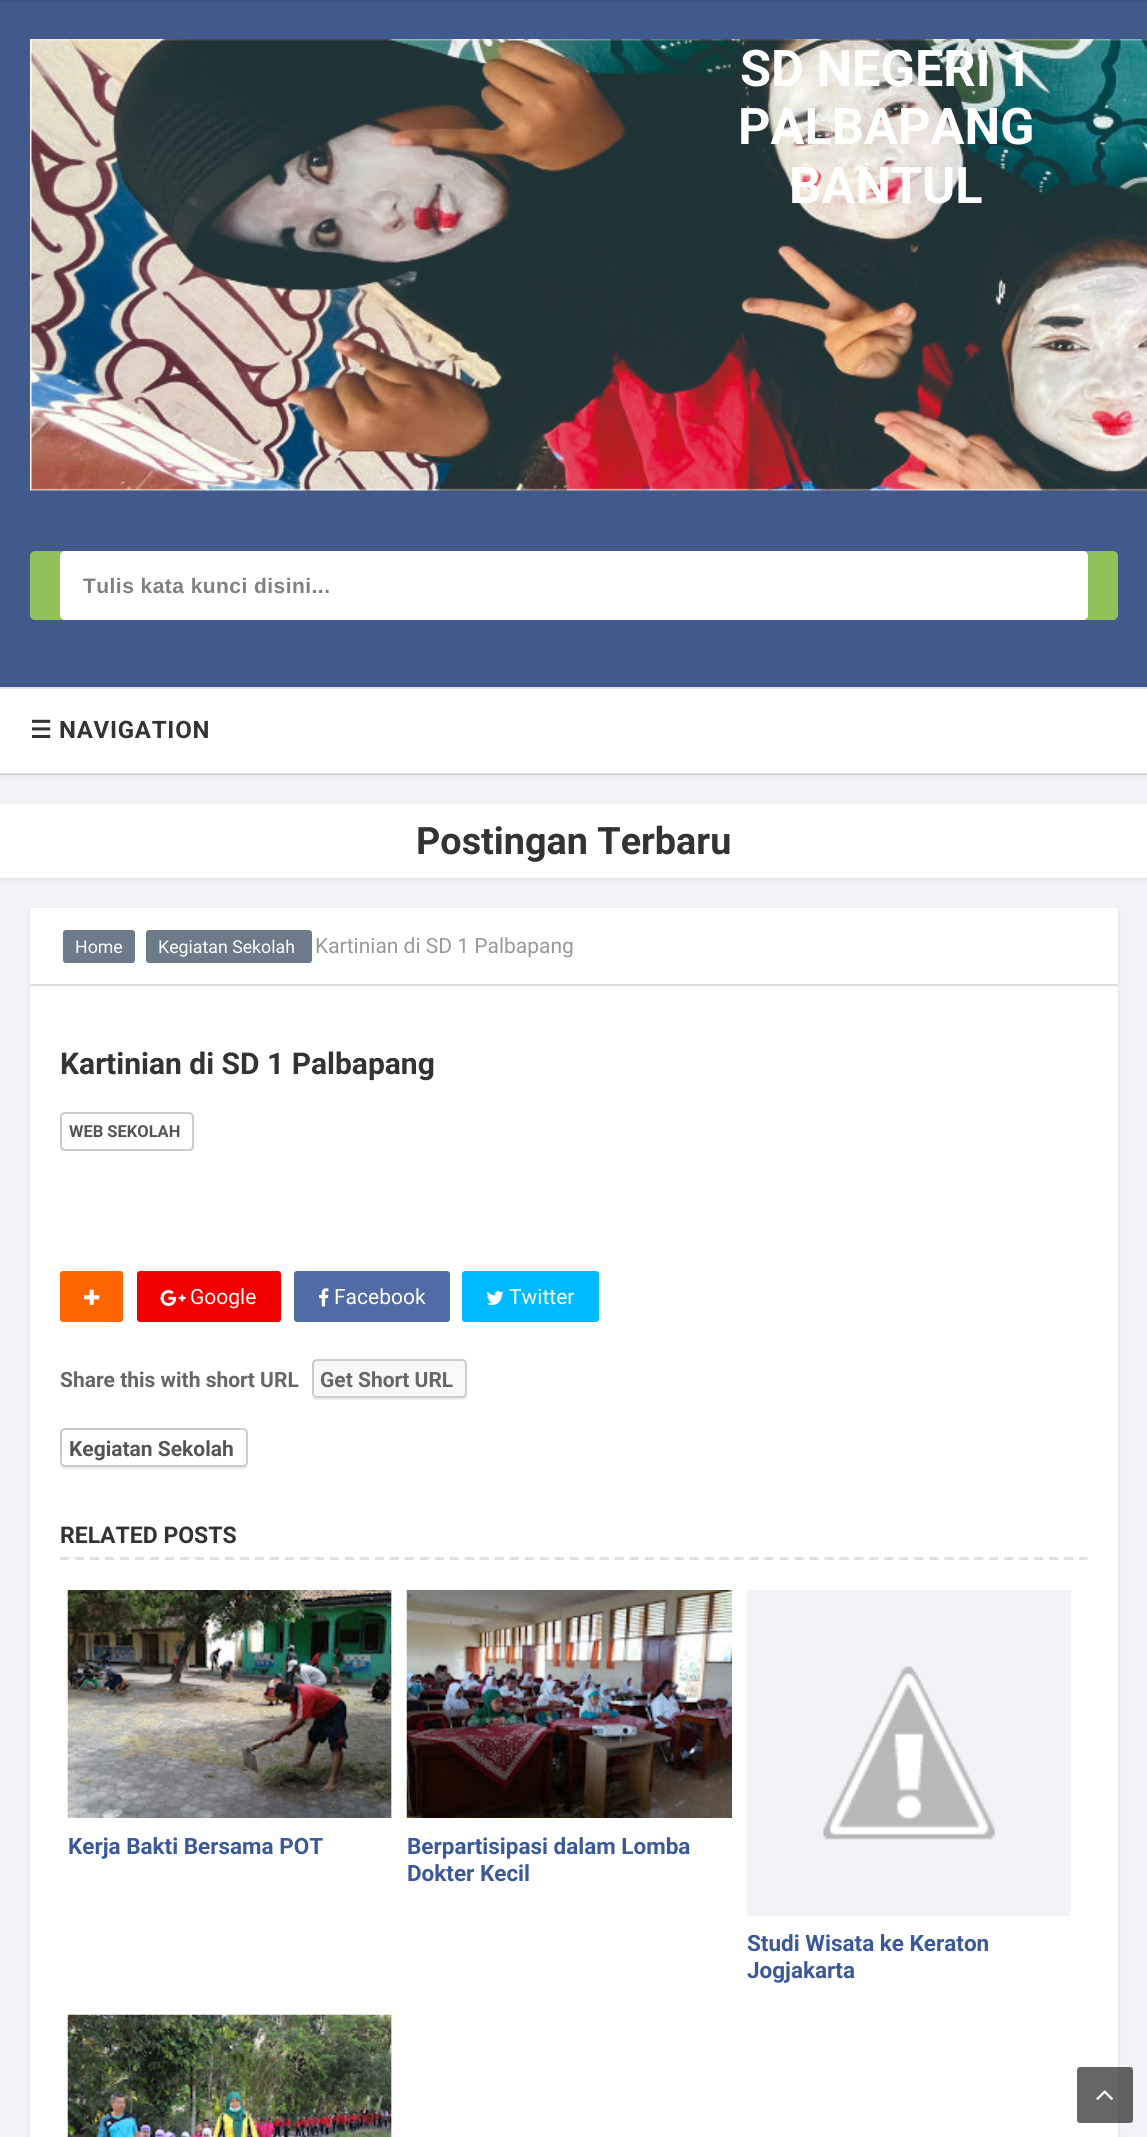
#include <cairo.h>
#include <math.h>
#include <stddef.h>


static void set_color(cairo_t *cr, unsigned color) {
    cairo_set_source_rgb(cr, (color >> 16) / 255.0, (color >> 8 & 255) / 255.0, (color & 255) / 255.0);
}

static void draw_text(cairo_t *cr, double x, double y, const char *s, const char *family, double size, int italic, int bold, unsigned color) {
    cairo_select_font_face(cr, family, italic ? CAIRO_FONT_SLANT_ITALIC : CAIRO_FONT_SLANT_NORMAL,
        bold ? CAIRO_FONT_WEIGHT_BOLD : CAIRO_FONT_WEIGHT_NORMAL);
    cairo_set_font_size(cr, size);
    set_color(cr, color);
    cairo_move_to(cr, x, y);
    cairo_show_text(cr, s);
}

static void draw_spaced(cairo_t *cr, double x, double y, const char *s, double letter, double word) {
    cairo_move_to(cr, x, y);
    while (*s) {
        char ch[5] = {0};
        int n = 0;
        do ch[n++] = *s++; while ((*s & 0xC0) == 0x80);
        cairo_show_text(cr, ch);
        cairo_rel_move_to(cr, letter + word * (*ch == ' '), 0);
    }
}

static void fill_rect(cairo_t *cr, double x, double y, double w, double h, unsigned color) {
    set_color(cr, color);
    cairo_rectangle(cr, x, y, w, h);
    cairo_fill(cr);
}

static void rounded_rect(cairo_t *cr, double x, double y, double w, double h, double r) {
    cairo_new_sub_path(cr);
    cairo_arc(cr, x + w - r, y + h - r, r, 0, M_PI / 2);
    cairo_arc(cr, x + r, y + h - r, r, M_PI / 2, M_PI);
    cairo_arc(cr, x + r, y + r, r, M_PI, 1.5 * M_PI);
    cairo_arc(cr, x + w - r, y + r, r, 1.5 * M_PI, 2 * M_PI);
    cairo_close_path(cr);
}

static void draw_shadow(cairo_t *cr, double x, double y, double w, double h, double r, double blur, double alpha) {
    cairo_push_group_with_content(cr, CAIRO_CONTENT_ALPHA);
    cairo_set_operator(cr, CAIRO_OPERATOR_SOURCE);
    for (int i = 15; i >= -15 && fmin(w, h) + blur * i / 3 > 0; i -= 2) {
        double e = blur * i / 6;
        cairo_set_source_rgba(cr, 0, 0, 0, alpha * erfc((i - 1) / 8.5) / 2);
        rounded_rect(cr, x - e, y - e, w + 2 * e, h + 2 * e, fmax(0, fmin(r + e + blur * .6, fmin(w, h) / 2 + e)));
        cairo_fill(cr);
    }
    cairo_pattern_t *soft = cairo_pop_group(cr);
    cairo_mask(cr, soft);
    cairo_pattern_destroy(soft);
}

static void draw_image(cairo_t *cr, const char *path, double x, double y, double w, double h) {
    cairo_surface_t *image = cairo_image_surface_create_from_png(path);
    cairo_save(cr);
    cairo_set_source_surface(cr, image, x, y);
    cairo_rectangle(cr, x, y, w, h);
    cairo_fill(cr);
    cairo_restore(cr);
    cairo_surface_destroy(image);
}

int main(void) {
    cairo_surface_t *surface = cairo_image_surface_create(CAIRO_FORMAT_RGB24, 1147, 2137);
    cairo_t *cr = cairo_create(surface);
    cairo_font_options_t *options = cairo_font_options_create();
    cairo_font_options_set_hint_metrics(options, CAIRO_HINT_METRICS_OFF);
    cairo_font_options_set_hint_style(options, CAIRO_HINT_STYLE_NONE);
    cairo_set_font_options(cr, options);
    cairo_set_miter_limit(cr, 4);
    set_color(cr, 0xF2F3F6);
    cairo_paint(cr);
    fill_rect(cr, 0, 2, 1147, 685, 0x41598B);
    fill_rect(cr, 0, 0, 1147, 2, 0x3D5483);
    draw_image(cr, "assets/img1.png", 30, 39, 1117, 452);
    draw_text(cr, 740, 86, "SD NEGERI 1", "Roboto", 50.5, 0, 1, 0xFFFFFF);
    draw_text(cr, 738, 144, "PALBAPANG", "Roboto", 50.5, 0, 1, 0xFFFFFF);
    draw_text(cr, 789, 203, "BANTUL", "Roboto", 50.5, 0, 1, 0xFFFFFF);
    set_color(cr, 0x92C15C);
    rounded_rect(cr, 30, 551, 1088, 69, 5);
    cairo_fill(cr);
    set_color(cr, 0xFFFFFF);
    rounded_rect(cr, 60, 551, 1028, 69, 5);
    cairo_fill(cr);
    cairo_save(cr);
    cairo_rectangle(cr, 83, 573, 982, 24);
    cairo_clip(cr);
    cairo_select_font_face(cr, "Liberation Sans", CAIRO_FONT_SLANT_NORMAL, CAIRO_FONT_WEIGHT_BOLD);
    cairo_set_font_size(cr, 21);
    set_color(cr, 0x808080);
    draw_spaced(cr, 83, 593, "Tulis kata kunci disini...", 0.45, 0);
    cairo_restore(cr);
    set_color(cr, 0x000000);
    draw_shadow(cr, 0, 687, 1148, 87, 0, 3, 0.1);
    fill_rect(cr, 0, 689, 1147, 85, 0xFFFFFF);
    fill_rect(cr, 0, 687, 1147, 2, 0xE0E0E0);
    cairo_set_source_rgba(cr, 0, 0, 0, 0.12);
    cairo_rectangle(cr, 0, 773, 1147, 2);
    cairo_fill(cr);
    cairo_select_font_face(cr, "DejaVu Sans", CAIRO_FONT_SLANT_NORMAL, CAIRO_FONT_WEIGHT_BOLD);
    cairo_set_font_size(cr, 24);
    set_color(cr, 0x333333);
    draw_spaced(cr, 30, 738, "☰", 0.75, 0);
    cairo_select_font_face(cr, "Roboto", CAIRO_FONT_SLANT_NORMAL, CAIRO_FONT_WEIGHT_BOLD);
    draw_spaced(cr, 59, 738, "NAVIGATION", 0.75, 0);
    set_color(cr, 0x000000);
    draw_shadow(cr, 0, 806, 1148, 73, 0, 1.5, 0.1);
    fill_rect(cr, 0, 804, 1147, 74, 0xFFFFFF);
    draw_text(cr, 416, 854, "Postingan Terbaru", "Roboto", 37.75, 0, 1, 0x333333);
    set_color(cr, 0x000000);
    draw_shadow(cr, 30, 909, 1088, 78, 0, 1.5, 0.1);
    fill_rect(cr, 30, 908, 1088, 76, 0xFFFFFF);
    fill_rect(cr, 30, 984, 1088, 2, 0xE0E0E0);
    set_color(cr, 0x6C7A89);
    rounded_rect(cr, 63, 930, 72, 33, 3);
    cairo_fill(cr);
    draw_text(cr, 75, 953, "Home", "Roboto", 17.75, 0, 0, 0xFFFFFF);
    set_color(cr, 0x6C7A89);
    rounded_rect(cr, 146, 930, 166, 33, 3);
    cairo_fill(cr);
    draw_text(cr, 158, 953, "Kegiatan Sekolah", "Roboto", 17.75, 0, 0, 0xFFFFFF);
    draw_text(cr, 315, 953, "Kartinian di SD 1 Palbapang", "Roboto", 21, 0, 0, 0x999999);
    set_color(cr, 0x000000);
    draw_shadow(cr, 30, 987, 1088, 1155, 0, 1.5, 0.1);
    fill_rect(cr, 30, 986, 1088, 1151, 0xFFFFFF);
    draw_text(cr, 60, 1074, "Kartinian di SD 1 Palbapang", "Roboto", 30, 0, 1, 0x333333);
    cairo_save(cr);
    cairo_rectangle(cr, 60, 1112, 1028, 39);
    cairo_clip(cr);
    set_color(cr, 0xEBEBEB);
    cairo_new_path(cr);
    cairo_move_to(cr, 60, 1146);
    cairo_line_to(cr, 60, 1147);
    cairo_curve_to(cr, 60, 1150, 62, 1152, 65, 1152);
    cairo_line_to(cr, 189, 1152);
    cairo_curve_to(cr, 192, 1152, 194, 1150, 194, 1147);
    cairo_line_to(cr, 194, 1118);
    cairo_line_to(cr, 193, 1116);
    cairo_line_to(cr, 194, 1141);
    cairo_curve_to(cr, 194, 1144, 194, 1150, 189, 1150);
    cairo_line_to(cr, 85, 1150);
    cairo_curve_to(cr, 76, 1150, 60, 1154, 60, 1146);
    cairo_close_path(cr);
    cairo_fill(cr);
    cairo_restore(cr);
    rounded_rect(cr, 61, 1113, 132, 37, 4);
    set_color(cr, 0xCCCCCC);
    cairo_stroke(cr);
    draw_text(cr, 69, 1137, "WEB SEKOLAH", "Roboto", 16.5, 0, 1, 0x555555);
    set_color(cr, 0xFF6600);
    rounded_rect(cr, 60, 1271, 63, 51, 3);
    cairo_fill(cr);
    draw_image(cr, "assets/img2.png", 84, 1289, 16, 16);
    set_color(cr, 0xF20000);
    rounded_rect(cr, 137, 1271, 144, 51, 3);
    cairo_fill(cr);
    draw_image(cr, "assets/img3.png", 160, 1290, 26, 16);
    draw_text(cr, 190, 1304, "Google", "Roboto", 21, 0, 0, 0xFFFFFF);
    set_color(cr, 0x516CA4);
    rounded_rect(cr, 294, 1271, 156, 51, 3);
    cairo_fill(cr);
    draw_image(cr, "assets/img4.png", 319, 1288, 10, 19);
    draw_text(cr, 334, 1304, "Facebook", "Roboto", 21, 0, 0, 0xFFFFFF);
    set_color(cr, 0x00BAFF);
    rounded_rect(cr, 462, 1271, 137, 51, 3);
    cairo_fill(cr);
    draw_image(cr, "assets/img5.png", 486, 1291, 18, 14);
    draw_text(cr, 509, 1304, "Twitter", "Roboto", 21, 0, 0, 0xFFFFFF);
    draw_text(cr, 60, 1387, "Share this with short URL", "Roboto", 21, 0, 1, 0x666666);
    set_color(cr, 0xEBEBEB);
    cairo_new_path(cr);
    cairo_move_to(cr, 312, 1394);
    cairo_line_to(cr, 312, 1395);
    cairo_curve_to(cr, 312, 1398, 314, 1400, 317, 1400);
    cairo_line_to(cr, 462, 1400);
    cairo_curve_to(cr, 465, 1400, 467, 1398, 467, 1395);
    cairo_line_to(cr, 467, 1366);
    cairo_line_to(cr, 466, 1364);
    cairo_line_to(cr, 466, 1394);
    cairo_curve_to(cr, 466, 1396, 464, 1398, 462, 1398);
    cairo_line_to(cr, 316, 1398);
    cairo_curve_to(cr, 314, 1398, 312, 1396, 312, 1394);
    cairo_close_path(cr);
    cairo_fill(cr);
    set_color(cr, 0xF8F8F8);
    rounded_rect(cr, 313, 1360, 153, 37, 4);
    cairo_fill_preserve(cr);
    set_color(cr, 0xCCCCCC);
    cairo_stroke(cr);
    draw_text(cr, 320, 1387, "Get Short URL", "Roboto", 21, 0, 1, 0x666666);
    set_color(cr, 0xEBEBEB);
    cairo_new_path(cr);
    cairo_move_to(cr, 60, 1462);
    cairo_line_to(cr, 60, 1464);
    cairo_curve_to(cr, 60, 1467, 62, 1469, 65, 1469);
    cairo_line_to(cr, 243, 1469);
    cairo_curve_to(cr, 246, 1469, 248, 1467, 248, 1464);
    cairo_line_to(cr, 248, 1435);
    cairo_line_to(cr, 248, 1433);
    cairo_line_to(cr, 248, 1462);
    cairo_curve_to(cr, 248, 1465, 245, 1467, 243, 1467);
    cairo_line_to(cr, 64, 1467);
    cairo_curve_to(cr, 62, 1467, 60, 1465, 60, 1462);
    cairo_close_path(cr);
    cairo_fill(cr);
    rounded_rect(cr, 61, 1429, 186, 37, 4);
    set_color(cr, 0xCCCCCC);
    cairo_stroke(cr);
    draw_text(cr, 69, 1456, "Kegiatan Sekolah", "Roboto", 21, 0, 1, 0x555555);
    cairo_new_path(cr);
    cairo_move_to(cr, 60, 1558.5);
    cairo_line_to(cr, 1087.5, 1558.5);
    set_color(cr, 0xE0E0E0);
    cairo_set_line_width(cr, 3);
    cairo_set_dash(cr, (double[]){9, 5.99}, 2, 0);
    cairo_stroke(cr);
    draw_text(cr, 60, 1543, "RELATED POSTS", "Roboto", 23, 0, 1, 0x333333);
    fill_rect(cr, 391, 1590, 1, 228, 0xF2F3F6);
    draw_image(cr, "assets/img6.png", 67, 1590, 325, 228);
    draw_text(cr, 68, 1854, "Kerja Bakti Bersama POT", "Roboto", 22.5, 0, 1, 0x3B5998);
    draw_image(cr, "assets/img7.png", 406, 1590, 326, 228);
    draw_text(cr, 407, 1854, "Berpartisipasi dalam Lomba", "Roboto", 22.5, 0, 1, 0x3B5998);
    draw_text(cr, 407, 1881, "Dokter Kecil", "Roboto", 22.5, 0, 1, 0x3B5998);
    fill_rect(cr, 747, 1590, 324, 326, 0xF2F3F6);
    draw_image(cr, "assets/img8.png", 823, 1666, 173, 174);
    draw_text(cr, 747, 1951, "Studi Wisata ke Keraton", "Roboto", 22.5, 0, 1, 0x3B5998);
    draw_text(cr, 747, 1978, "Jogjakarta", "Roboto", 22.5, 0, 1, 0x3B5998);
    fill_rect(cr, 391, 2015, 1, 122, 0xF2F3F6);
    draw_image(cr, "assets/img9.png", 67, 2014, 325, 123);
    cairo_set_source_rgba(cr, 0, 0, 0, 0.6);
    rounded_rect(cr, 1077, 2067, 56, 56, 3);
    cairo_fill(cr);
    draw_image(cr, "assets/img10.png", 1096, 2090, 17, 10);
    cairo_surface_write_to_png(surface, "output.png");
    cairo_font_options_destroy(options);
    cairo_destroy(cr);
    cairo_surface_destroy(surface);
    return 0;
}
